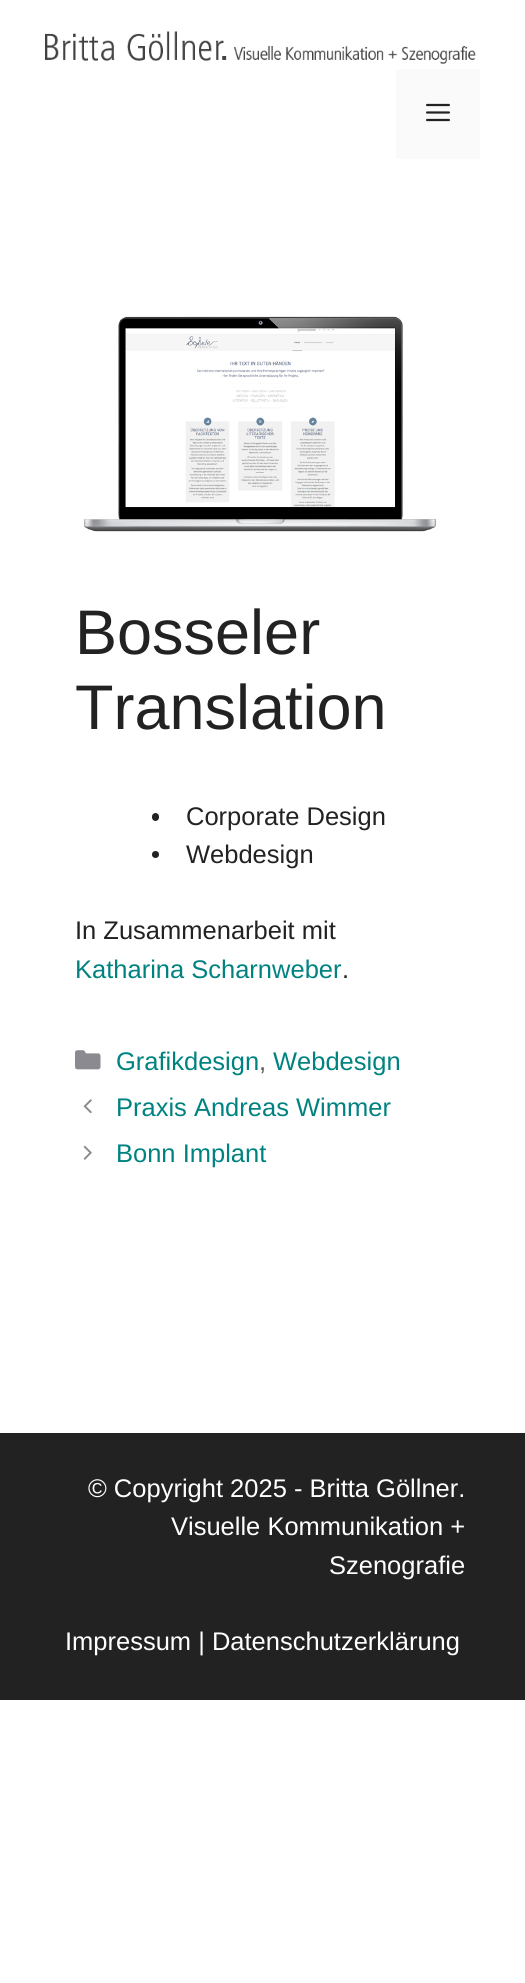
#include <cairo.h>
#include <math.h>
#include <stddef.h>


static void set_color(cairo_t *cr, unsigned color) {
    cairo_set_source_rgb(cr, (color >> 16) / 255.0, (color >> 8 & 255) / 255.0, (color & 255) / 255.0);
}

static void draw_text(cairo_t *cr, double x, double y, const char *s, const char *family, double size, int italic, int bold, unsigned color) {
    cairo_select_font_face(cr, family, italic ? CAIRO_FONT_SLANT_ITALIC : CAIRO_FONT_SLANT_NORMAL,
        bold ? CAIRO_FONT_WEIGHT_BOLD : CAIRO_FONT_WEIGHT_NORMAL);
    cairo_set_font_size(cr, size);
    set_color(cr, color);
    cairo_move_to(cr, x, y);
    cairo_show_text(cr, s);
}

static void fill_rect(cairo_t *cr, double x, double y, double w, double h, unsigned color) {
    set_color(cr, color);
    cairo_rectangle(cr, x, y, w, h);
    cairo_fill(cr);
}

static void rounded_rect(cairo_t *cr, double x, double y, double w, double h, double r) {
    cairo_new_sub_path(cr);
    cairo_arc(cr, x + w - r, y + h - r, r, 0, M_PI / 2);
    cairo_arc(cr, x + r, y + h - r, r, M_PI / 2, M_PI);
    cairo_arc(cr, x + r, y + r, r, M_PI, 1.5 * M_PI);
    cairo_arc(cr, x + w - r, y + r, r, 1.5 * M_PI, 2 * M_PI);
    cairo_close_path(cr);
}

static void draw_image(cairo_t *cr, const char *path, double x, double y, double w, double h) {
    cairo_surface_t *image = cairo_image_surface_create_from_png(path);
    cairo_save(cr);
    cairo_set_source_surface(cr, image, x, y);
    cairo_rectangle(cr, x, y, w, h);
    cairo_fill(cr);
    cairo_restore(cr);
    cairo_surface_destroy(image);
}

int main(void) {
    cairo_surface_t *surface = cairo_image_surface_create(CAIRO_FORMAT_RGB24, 525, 1983);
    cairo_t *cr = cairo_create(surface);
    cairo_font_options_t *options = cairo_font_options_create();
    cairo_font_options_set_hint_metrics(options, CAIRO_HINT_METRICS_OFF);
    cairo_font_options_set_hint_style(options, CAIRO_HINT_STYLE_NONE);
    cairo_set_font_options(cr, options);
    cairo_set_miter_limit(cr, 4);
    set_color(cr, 0xFFFFFF);
    cairo_paint(cr);
    draw_image(cr, "assets/img1.png", 45, 31, 431, 33);
    fill_rect(cr, 396, 69, 84, 90, 0xFAFAFA);
    draw_image(cr, "assets/img2.png", 426, 103, 24, 19);
    draw_image(cr, "assets/img3.png", 84, 316, 352, 216);
    draw_text(cr, 75, 654, "Bosseler", "Liberation Sans", 63, 0, 0, 0x222222);
    draw_text(cr, 75, 729, "Translation", "Liberation Sans", 63, 0, 0, 0x222222);
    rounded_rect(cr, 152, 813, 7, 8, 3.5);
    cairo_fill(cr);
    draw_text(cr, 186, 825, "Corporate Design", "Liberation Sans", 25.5, 0, 0, 0x222222);
    cairo_new_path(cr);
    cairo_arc(cr, 155.5, 854.5, 3.5, 0, 2 * M_PI);
    cairo_fill(cr);
    draw_text(cr, 186, 863, "Webdesign", "Liberation Sans", 25.5, 0, 0, 0x222222);
    draw_text(cr, 75, 939, "In Zusammenarbeit mit", "Liberation Sans", 25.5, 0, 0, 0x222222);
    draw_text(cr, 75, 978, "Katharina Scharnweber", "Liberation Sans", 25.5, 0, 0, 0x008380);
    draw_text(cr, 342, 978, ".", "Liberation Sans", 25.5, 0, 0, 0x222222);
    draw_image(cr, "assets/img4.png", 75, 1050, 26, 20);
    draw_text(cr, 116, 1070, "Grafikdesign", "Liberation Sans", 25.5, 0, 0, 0x008380);
    draw_text(cr, 259, 1070, ",", "Liberation Sans", 25.5, 0, 0, 0x575760);
    draw_text(cr, 273, 1070, "Webdesign", "Liberation Sans", 25.5, 0, 0, 0x008380);
    draw_image(cr, "assets/img5.png", 83, 1099, 9, 15);
    draw_text(cr, 116, 1116, "Praxis Andreas Wimmer", "Liberation Sans", 25.5, 0, 0, 0x008380);
    draw_image(cr, "assets/img6.png", 83, 1145, 9, 15);
    draw_text(cr, 116, 1162, "Bonn Implant", "Liberation Sans", 25.5, 0, 0, 0x008380);
    fill_rect(cr, 0, 1433, 525, 267, 0x222222);
    draw_text(cr, 88, 1497, "© Copyright 2025 - Britta Göllner.", "Liberation Sans", 25.5, 0, 0, 0xFFFFFF);
    draw_text(cr, 171, 1535, "Visuelle Kommunikation +", "Liberation Sans", 25.5, 0, 0, 0xFFFFFF);
    draw_text(cr, 329, 1574, "Szenografie", "Liberation Sans", 25.5, 0, 0, 0xFFFFFF);
    draw_text(cr, 65, 1650, "Impressum | Datenschutzerklärung", "Liberation Sans", 25.5, 0, 0, 0xFFFFFF);
    cairo_surface_write_to_png(surface, "output.png");
    cairo_font_options_destroy(options);
    cairo_destroy(cr);
    cairo_surface_destroy(surface);
    return 0;
}
